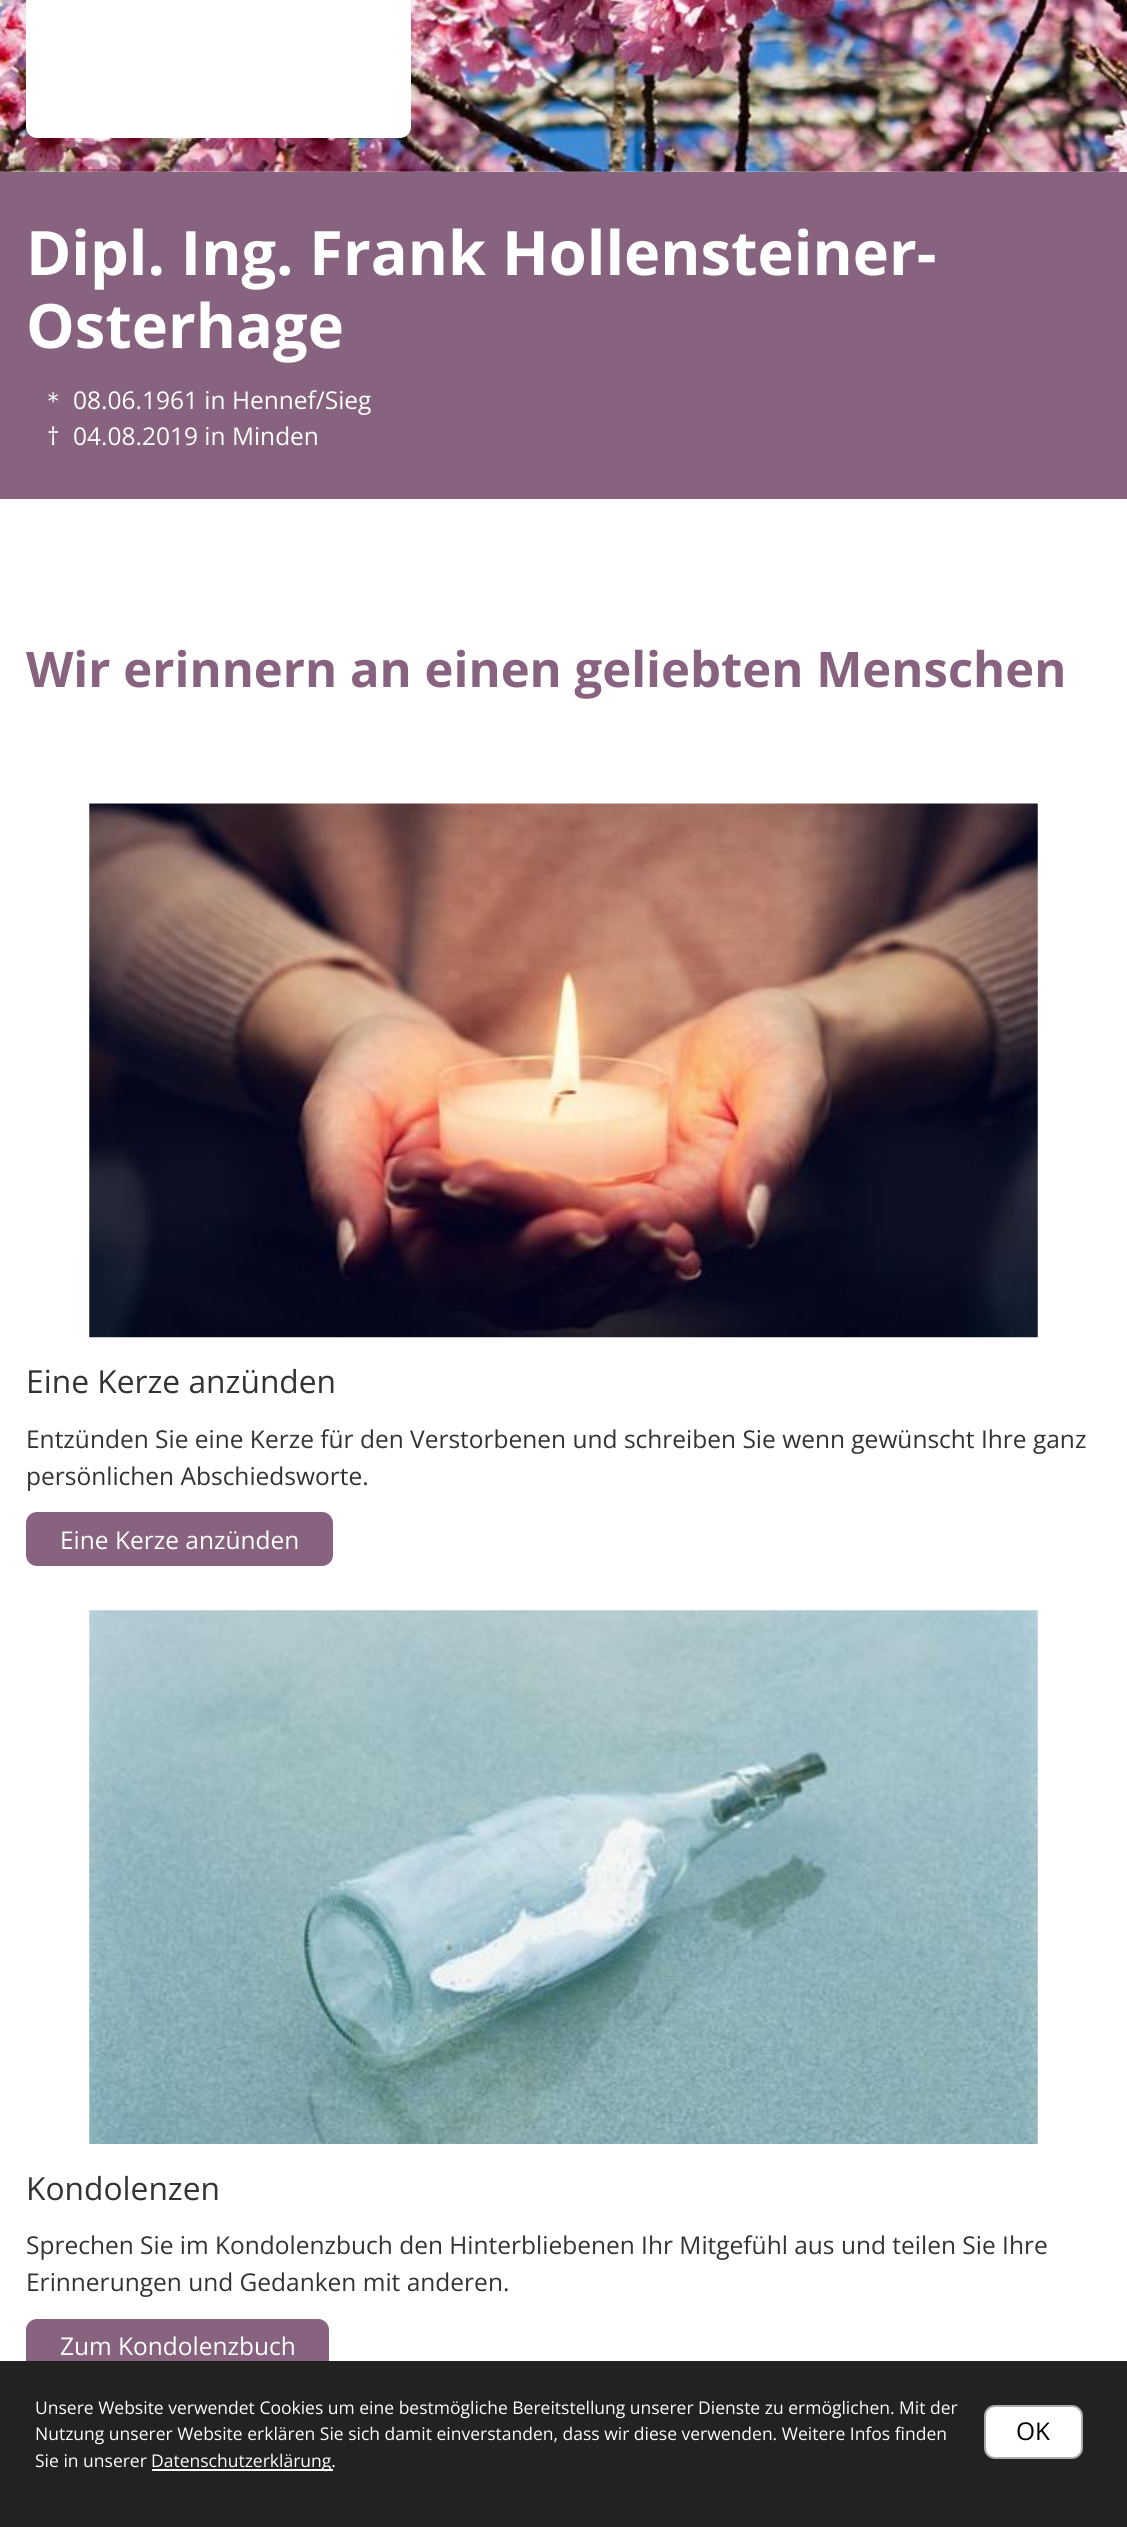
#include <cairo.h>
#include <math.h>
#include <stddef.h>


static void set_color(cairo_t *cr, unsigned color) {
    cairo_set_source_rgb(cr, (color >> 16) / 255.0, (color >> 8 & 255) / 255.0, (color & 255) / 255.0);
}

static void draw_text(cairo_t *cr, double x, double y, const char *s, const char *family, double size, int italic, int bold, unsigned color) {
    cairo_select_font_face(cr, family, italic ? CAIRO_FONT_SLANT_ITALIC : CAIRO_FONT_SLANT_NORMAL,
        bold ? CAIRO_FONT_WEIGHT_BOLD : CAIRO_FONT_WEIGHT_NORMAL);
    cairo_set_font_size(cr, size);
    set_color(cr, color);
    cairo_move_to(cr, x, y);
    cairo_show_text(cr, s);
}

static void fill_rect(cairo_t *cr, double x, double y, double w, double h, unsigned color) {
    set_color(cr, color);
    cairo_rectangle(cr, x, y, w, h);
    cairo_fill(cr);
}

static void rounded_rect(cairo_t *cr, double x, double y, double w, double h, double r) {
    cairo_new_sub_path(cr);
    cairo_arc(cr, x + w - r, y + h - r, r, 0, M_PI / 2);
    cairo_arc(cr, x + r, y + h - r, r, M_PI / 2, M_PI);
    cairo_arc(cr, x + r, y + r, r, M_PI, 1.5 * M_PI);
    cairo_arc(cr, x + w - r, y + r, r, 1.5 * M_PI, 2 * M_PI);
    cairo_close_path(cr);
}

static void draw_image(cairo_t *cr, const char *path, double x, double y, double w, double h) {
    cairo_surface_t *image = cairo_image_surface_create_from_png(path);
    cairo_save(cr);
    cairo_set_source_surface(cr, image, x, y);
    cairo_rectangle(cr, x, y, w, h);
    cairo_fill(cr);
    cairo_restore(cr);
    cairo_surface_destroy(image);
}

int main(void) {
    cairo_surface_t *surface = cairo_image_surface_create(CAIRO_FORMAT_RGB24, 1127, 2527);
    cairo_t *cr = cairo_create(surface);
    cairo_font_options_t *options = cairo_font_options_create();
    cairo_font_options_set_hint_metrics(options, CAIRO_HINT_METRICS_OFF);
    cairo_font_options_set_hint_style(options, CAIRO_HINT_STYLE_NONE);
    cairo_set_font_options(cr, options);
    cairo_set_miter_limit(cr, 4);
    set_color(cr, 0xFFFFFF);
    cairo_paint(cr);
    draw_image(cr, "assets/img1.png", 0, 0, 1127, 172);
    set_color(cr, 0xFFFFFF);
    cairo_new_path(cr);
    cairo_move_to(cr, 26, -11);
    cairo_line_to(cr, 411, -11);
    cairo_line_to(cr, 411, 127);
    cairo_curve_to(cr, 411, 133, 406, 138, 400, 138);
    cairo_line_to(cr, 37, 138);
    cairo_curve_to(cr, 31, 138, 26, 133, 26, 127);
    cairo_close_path(cr);
    cairo_fill(cr);
    fill_rect(cr, 0, 172, 1127, 327, 0x88637F);
    draw_text(cr, 26, 275, "Dipl. Ing. Frank Hollensteiner-", "Open Sans", 61.25, 0, 1, 0xFFFFFF);
    draw_text(cr, 26, 348, "Osterhage", "Open Sans", 61.25, 0, 1, 0xFFFFFF);
    draw_text(cr, 41, 409, "＊", "WenQuanYi Zen Hei Medium", 24.5, 0, 0, 0xFFFFFF);
    draw_text(cr, 73, 409, "08.06.1961 in Hennef/Sieg", "Open Sans", 24.5, 0, 0, 0xFFFFFF);
    draw_text(cr, 47, 445, "†", "Open Sans", 24.5, 0, 0, 0xFFFFFF);
    draw_text(cr, 73, 445, "04.08.2019 in Minden", "Open Sans", 24.5, 0, 0, 0xFFFFFF);
    draw_text(cr, 26, 687, "Wir erinnern an einen geliebten Menschen", "Open Sans", 49, 0, 1, 0x88637F);
    draw_image(cr, "assets/img2.png", 89, 803, 949, 535);
    draw_text(cr, 26, 1393, "Eine Kerze anzünden", "Open Sans", 31.75, 0, 0, 0x333333);
    draw_text(cr, 26, 1448, "Entzünden Sie eine Kerze für den Verstorbenen und schreiben Sie wenn gewünscht Ihre ganz", "Open Sans", 24.5, 0, 0, 0x333333);
    draw_text(cr, 26, 1485, "persönlichen Abschiedsworte.", "Open Sans", 24.5, 0, 0, 0x333333);
    set_color(cr, 0x88637F);
    rounded_rect(cr, 27, 1513, 305, 52, 10);
    cairo_fill_preserve(cr);
    cairo_stroke(cr);
    draw_text(cr, 60, 1549, "Eine Kerze anzünden", "Open Sans", 24.5, 0, 0, 0xFFFFFF);
    draw_image(cr, "assets/img3.png", 89, 1610, 949, 534);
    draw_text(cr, 26, 2200, "Kondolenzen", "Open Sans", 31.75, 0, 0, 0x333333);
    draw_text(cr, 26, 2254, "Sprechen Sie im Kondolenzbuch den Hinterbliebenen Ihr Mitgefühl aus und teilen Sie Ihre", "Open Sans", 24.5, 0, 0, 0x333333);
    draw_text(cr, 26, 2291, "Erinnerungen und Gedanken mit anderen.", "Open Sans", 24.5, 0, 0, 0x333333);
    set_color(cr, 0x88637F);
    rounded_rect(cr, 27, 2320, 301, 52, 10);
    cairo_fill_preserve(cr);
    cairo_stroke(cr);
    draw_text(cr, 60, 2355, "Zum Kondolenzbuch", "Open Sans", 24.5, 0, 0, 0xFFFFFF);
    fill_rect(cr, 0, 2361, 1127, 166, 0x222222);
    draw_text(cr, 35, 2414, "Unsere Website verwendet Cookies um eine bestmögliche Bereitstellung unserer Dienste zu ermöglichen. Mit der", "Open Sans", 17.5, 0, 0, 0xFFFFFF);
    draw_text(cr, 35, 2440, "Nutzung unserer Website erklären Sie sich damit einverstanden, dass wir diese verwenden. Weitere Infos finden", "Open Sans", 17.5, 0, 0, 0xFFFFFF);
    draw_text(cr, 35, 2467, "Sie in unserer", "Open Sans", 17.5, 0, 0, 0xFFFFFF);
    fill_rect(cr, 152, 2469, 181, 2, 0xFFFFFF);
    draw_text(cr, 151, 2467, "Datenschutzerklärung.", "Open Sans", 17.5, 0, 0, 0xFFFFFF);
    rounded_rect(cr, 985, 2406, 97, 52, 10);
    cairo_fill_preserve(cr);
    set_color(cr, 0xAAAAAA);
    cairo_stroke(cr);
    draw_text(cr, 1016, 2440, "OK", "Open Sans", 24.5, 0, 0, 0x000000);
    cairo_surface_write_to_png(surface, "output.png");
    cairo_font_options_destroy(options);
    cairo_destroy(cr);
    cairo_surface_destroy(surface);
    return 0;
}
